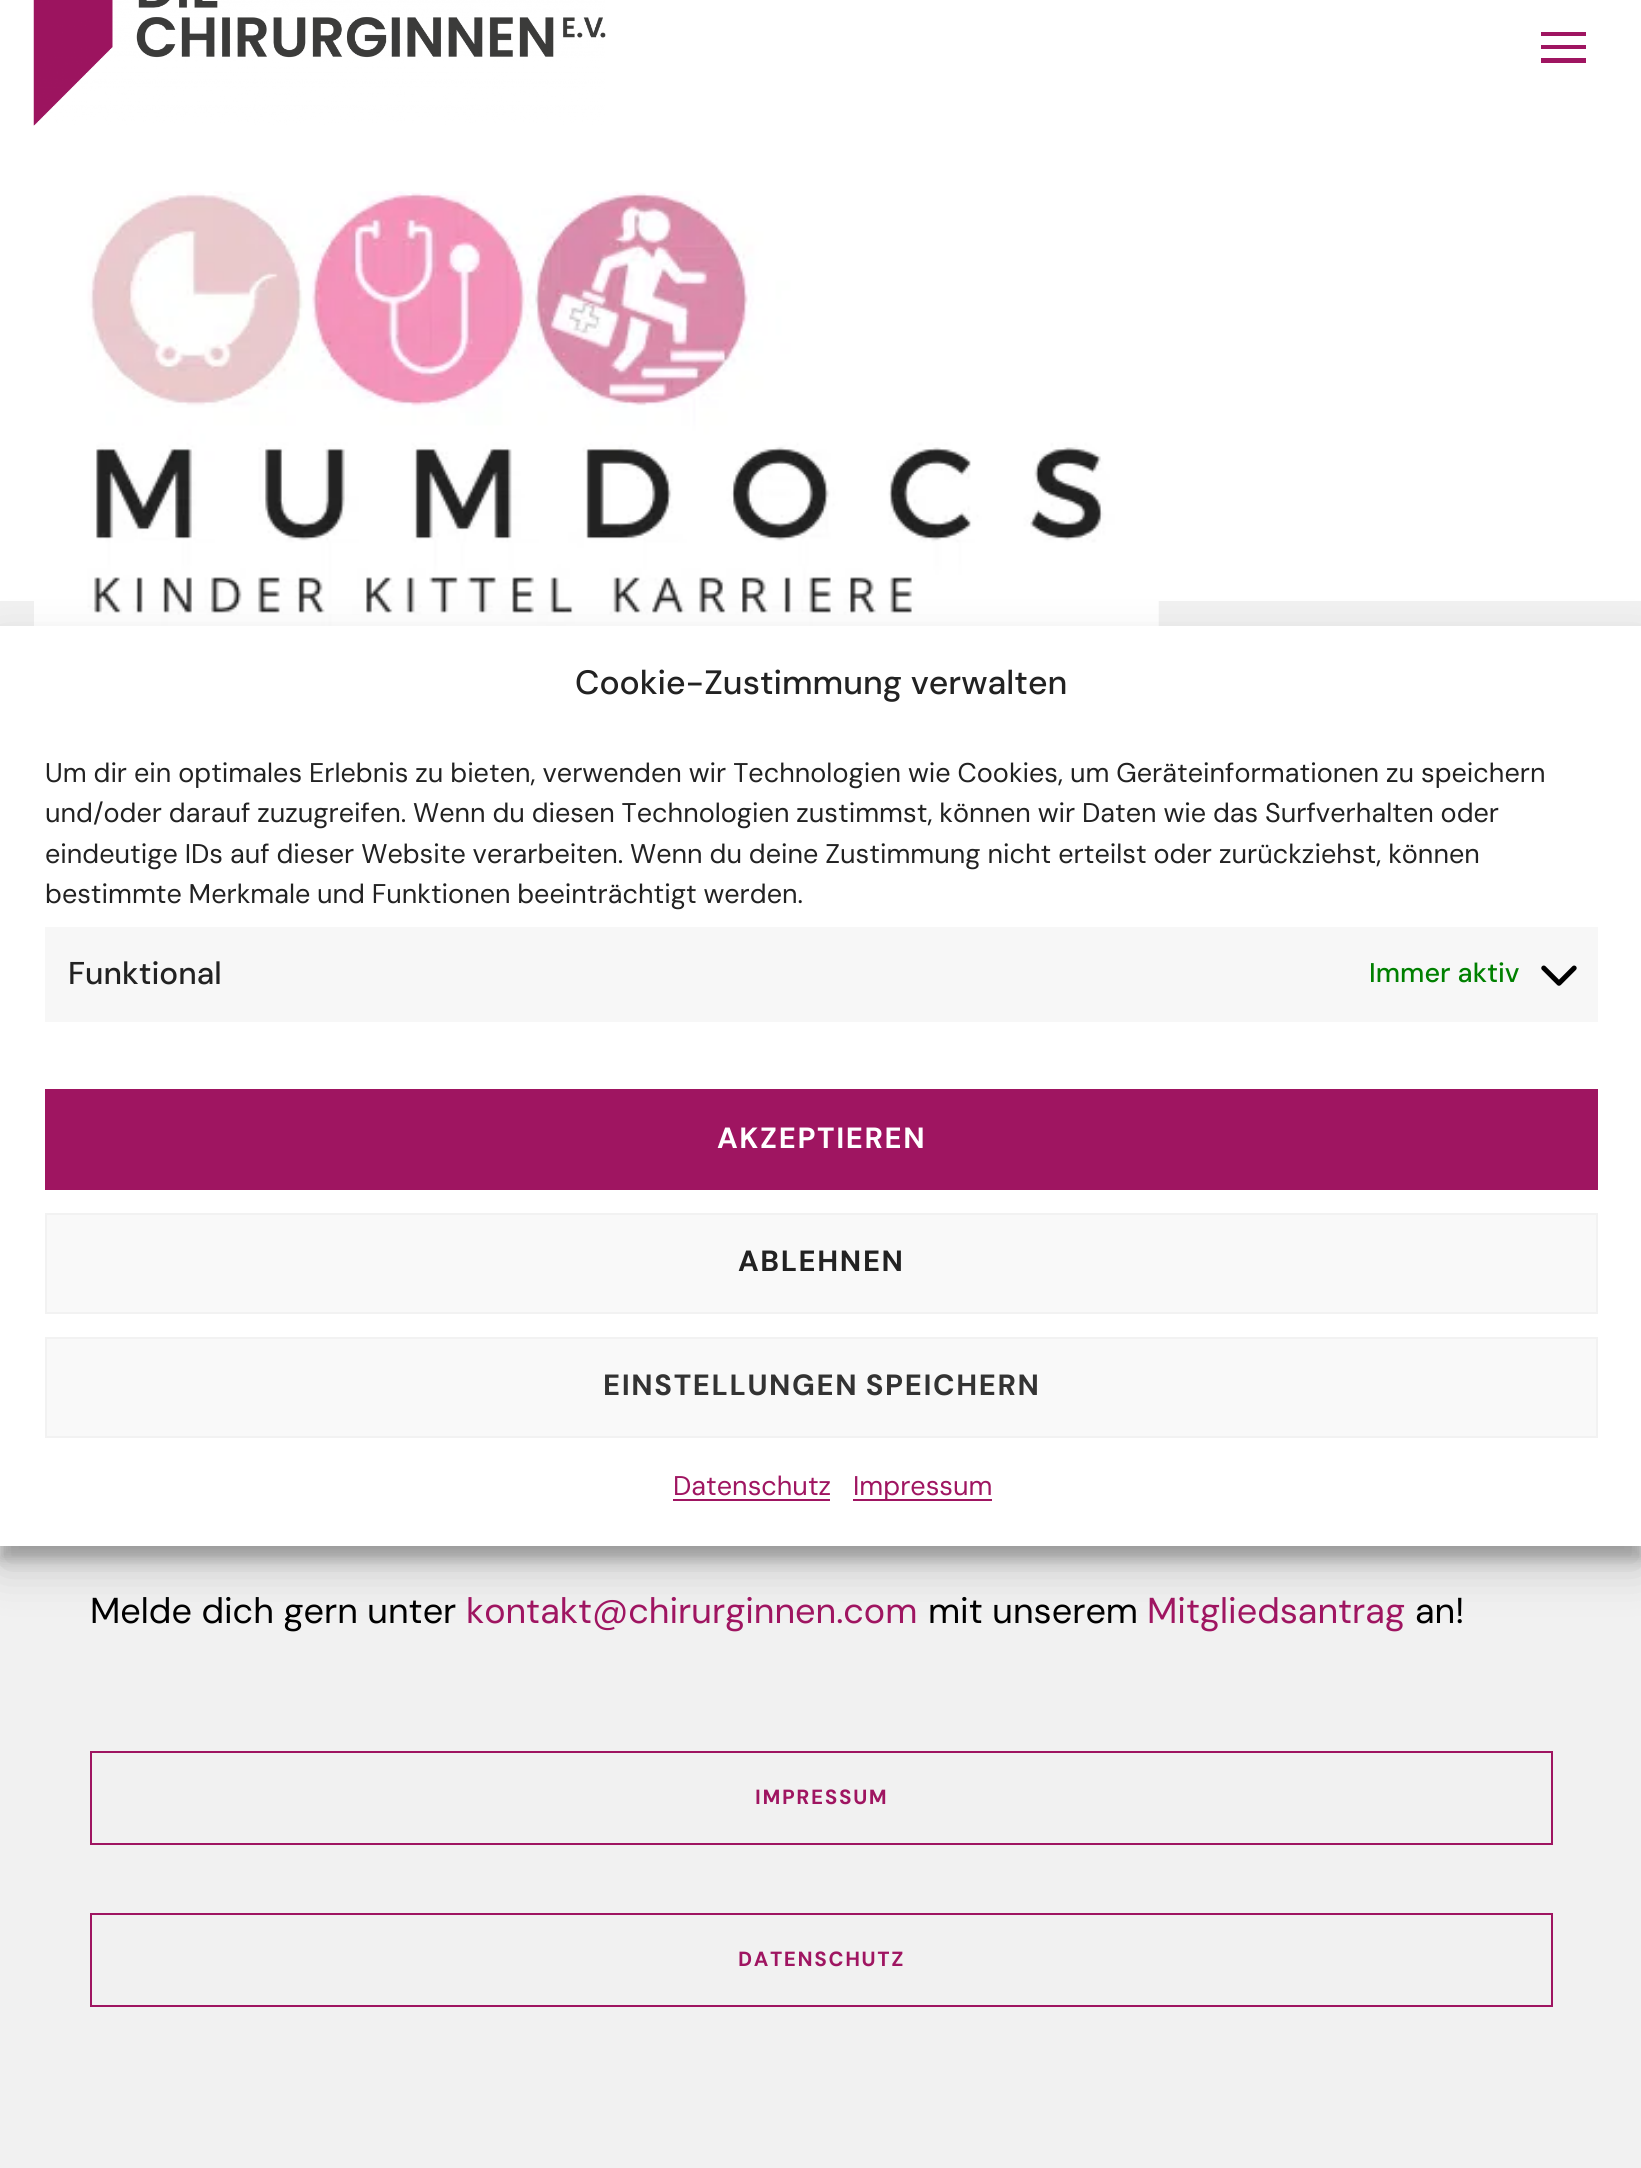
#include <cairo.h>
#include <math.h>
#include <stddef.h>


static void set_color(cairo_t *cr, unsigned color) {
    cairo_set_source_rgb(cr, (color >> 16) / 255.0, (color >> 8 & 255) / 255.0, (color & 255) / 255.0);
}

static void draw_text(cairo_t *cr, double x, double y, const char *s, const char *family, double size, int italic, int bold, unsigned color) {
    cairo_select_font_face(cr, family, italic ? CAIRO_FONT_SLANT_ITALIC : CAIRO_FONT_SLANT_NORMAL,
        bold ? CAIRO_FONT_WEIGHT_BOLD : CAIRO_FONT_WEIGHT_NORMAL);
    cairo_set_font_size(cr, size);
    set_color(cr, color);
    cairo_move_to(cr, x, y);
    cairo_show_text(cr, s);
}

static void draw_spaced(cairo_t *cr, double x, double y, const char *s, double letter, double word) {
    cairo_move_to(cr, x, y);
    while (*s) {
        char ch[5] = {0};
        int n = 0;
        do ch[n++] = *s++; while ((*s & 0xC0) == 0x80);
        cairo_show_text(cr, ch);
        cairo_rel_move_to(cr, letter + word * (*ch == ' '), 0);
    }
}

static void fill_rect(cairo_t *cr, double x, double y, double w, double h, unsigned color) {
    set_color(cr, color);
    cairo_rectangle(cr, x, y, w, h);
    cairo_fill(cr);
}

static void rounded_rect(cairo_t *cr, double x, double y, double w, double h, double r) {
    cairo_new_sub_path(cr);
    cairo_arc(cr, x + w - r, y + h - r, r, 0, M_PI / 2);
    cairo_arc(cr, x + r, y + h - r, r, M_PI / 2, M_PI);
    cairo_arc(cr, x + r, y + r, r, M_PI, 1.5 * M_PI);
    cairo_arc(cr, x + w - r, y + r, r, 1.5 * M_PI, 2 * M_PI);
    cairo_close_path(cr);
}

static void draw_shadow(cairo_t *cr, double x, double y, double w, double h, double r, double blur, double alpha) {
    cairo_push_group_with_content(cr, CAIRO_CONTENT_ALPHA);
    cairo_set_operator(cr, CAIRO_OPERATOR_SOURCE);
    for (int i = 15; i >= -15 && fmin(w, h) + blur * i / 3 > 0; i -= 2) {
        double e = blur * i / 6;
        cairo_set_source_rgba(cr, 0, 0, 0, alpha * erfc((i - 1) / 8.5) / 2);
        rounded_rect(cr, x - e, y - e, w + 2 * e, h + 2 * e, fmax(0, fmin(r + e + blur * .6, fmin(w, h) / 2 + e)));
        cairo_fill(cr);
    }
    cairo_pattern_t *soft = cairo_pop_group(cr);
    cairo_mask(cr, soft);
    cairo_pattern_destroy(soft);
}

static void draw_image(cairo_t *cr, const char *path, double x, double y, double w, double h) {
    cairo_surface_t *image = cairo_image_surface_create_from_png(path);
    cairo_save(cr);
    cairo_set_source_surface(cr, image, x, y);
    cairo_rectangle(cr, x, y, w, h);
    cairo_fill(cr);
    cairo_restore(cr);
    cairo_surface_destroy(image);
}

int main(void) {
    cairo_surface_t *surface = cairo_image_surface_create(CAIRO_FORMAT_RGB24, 1641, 2168);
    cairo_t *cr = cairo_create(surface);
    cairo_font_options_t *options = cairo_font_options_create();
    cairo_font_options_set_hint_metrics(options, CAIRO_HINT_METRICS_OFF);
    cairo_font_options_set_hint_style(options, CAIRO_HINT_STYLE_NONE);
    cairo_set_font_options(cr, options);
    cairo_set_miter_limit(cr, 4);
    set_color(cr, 0xFFFFFF);
    cairo_paint(cr);
    fill_rect(cr, 0, 601, 1641, 1567, 0xF1F1F1);
    draw_image(cr, "assets/img3.png", 34, 191, 1125, 435);
    set_color(cr, 0x000000);
    draw_shadow(cr, 0, 639, 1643, 920, 0, 7, 0.23);
    draw_shadow(cr, 0, 648, 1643, 920, 0, 22.5, 0.19);
    fill_rect(cr, 0, 626, 1641, 920, 0xFFFFFF);
    draw_text(cr, 575, 694, "Cookie-Zustimmung verwalten", "DM Sans Medium", 33.75, 0, 0, 0x222222);
    cairo_select_font_face(cr, "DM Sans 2", CAIRO_FONT_SLANT_NORMAL, CAIRO_FONT_WEIGHT_NORMAL);
    cairo_set_font_size(cr, 27);
    draw_spaced(cr, 45, 782, "Um dir ein optimales Erlebnis zu bieten, verwenden wir Technologien wie Cookies, um Geräteinformationen zu speichern", 0, -0.3);
    draw_spaced(cr, 45, 822, "und/oder darauf zuzugreifen. Wenn du diesen Technologien zustimmst, können wir Daten wie das Surfverhalten oder", 0, -0.4);
    draw_spaced(cr, 45, 863, "eindeutige IDs auf dieser Website verarbeiten. Wenn du deine Zustimmung nicht erteilst oder zurückziehst, können", 0, -0.3);
    draw_spaced(cr, 45, 903, "bestimmte Merkmale und Funktionen beeinträchtigt werden.", 0, -0.5);
    fill_rect(cr, 45, 927, 1553, 95, 0xF7F7F7);
    draw_text(cr, 68, 984, "Funktional", "DM Sans 2 Medium", 31.5, 0, 0, 0x222222);
    draw_text(cr, 1369, 982, "Immer aktiv", "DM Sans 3 Medium", 27, 0, 0, 0x008000);
    draw_image(cr, "assets/img1.png", 1541, 965, 36, 21);
    fill_rect(cr, 45, 1089, 1553, 101, 0x9F1561);
    cairo_select_font_face(cr, "DM Sans 2", CAIRO_FONT_SLANT_NORMAL, CAIRO_FONT_WEIGHT_BOLD);
    cairo_set_font_size(cr, 29.25);
    set_color(cr, 0xFFFFFF);
    draw_spaced(cr, 717, 1148, "AKZEPTIEREN", 1.6, 0);
    set_color(cr, 0xF9F9F9);
    cairo_rectangle(cr, 46, 1214, 1551, 99);
    cairo_fill_preserve(cr);
    set_color(cr, 0xF2F2F2);
    cairo_stroke(cr);
    set_color(cr, 0x222222);
    draw_spaced(cr, 738, 1271, "ABLEHNEN", 1.6, 0);
    set_color(cr, 0xF9F9F9);
    cairo_rectangle(cr, 46, 1338, 1551, 99);
    cairo_fill_preserve(cr);
    set_color(cr, 0xF2F2F2);
    cairo_stroke(cr);
    set_color(cr, 0x333333);
    draw_spaced(cr, 603, 1395, "EINSTELLUNGEN SPEICHERN", 1.6, -1);
    draw_text(cr, 673, 1495, "Datenschutz", "DM Sans 2", 27, 0, 0, 0x9F1561);
    fill_rect(cr, 673, 1499, 157, 2, 0x9F1561);
    fill_rect(cr, 853, 1499, 139, 2, 0x9F1561);
    draw_text(cr, 853, 1495, "Impressum", "DM Sans 2", 27, 0, 0, 0x9F1561);
    draw_image(cr, "assets/img2.png", 33, 0, 573, 126);
    cairo_new_path(cr);
    cairo_move_to(cr, 1541, 45);
    cairo_line_to(cr, 1586, 45);
    cairo_line_to(cr, 1586, 49);
    cairo_line_to(cr, 1541, 49);
    cairo_close_path(cr);
    cairo_move_to(cr, 1541, 32);
    cairo_line_to(cr, 1586, 32);
    cairo_line_to(cr, 1586, 36);
    cairo_line_to(cr, 1541, 36);
    cairo_close_path(cr);
    cairo_move_to(cr, 1541, 58);
    cairo_line_to(cr, 1586, 58);
    cairo_line_to(cr, 1586, 63);
    cairo_line_to(cr, 1541, 63);
    cairo_close_path(cr);
    cairo_fill(cr);
    draw_text(cr, 90, 1623, "Melde dich gern unter", "DM Sans", 36, 0, 0, 0x000000);
    draw_text(cr, 466, 1623, "kontakt@chirurginnen.com", "DM Sans", 36, 0, 0, 0x9F1561);
    draw_text(cr, 928, 1623, "mit unserem", "DM Sans", 36, 0, 0, 0x000000);
    draw_text(cr, 1147, 1623, "Mitgliedsantrag", "DM Sans", 36, 0, 0, 0x9F1561);
    draw_text(cr, 1415, 1623, "an!", "DM Sans", 36, 0, 0, 0x000000);
    cairo_rectangle(cr, 91, 1752, 1461, 92);
    set_color(cr, 0x9F1561);
    cairo_stroke(cr);
    cairo_select_font_face(cr, "DM Sans", CAIRO_FONT_SLANT_NORMAL, CAIRO_FONT_WEIGHT_BOLD);
    cairo_set_font_size(cr, 20.5);
    draw_spaced(cr, 755, 1804, "IMPRESSUM", 1.6, 0);
    cairo_rectangle(cr, 91, 1914, 1461, 92);
    cairo_stroke(cr);
    draw_spaced(cr, 738, 1966, "DATENSCHUTZ", 1.6, 0);
    cairo_surface_write_to_png(surface, "output.png");
    cairo_font_options_destroy(options);
    cairo_destroy(cr);
    cairo_surface_destroy(surface);
    return 0;
}
